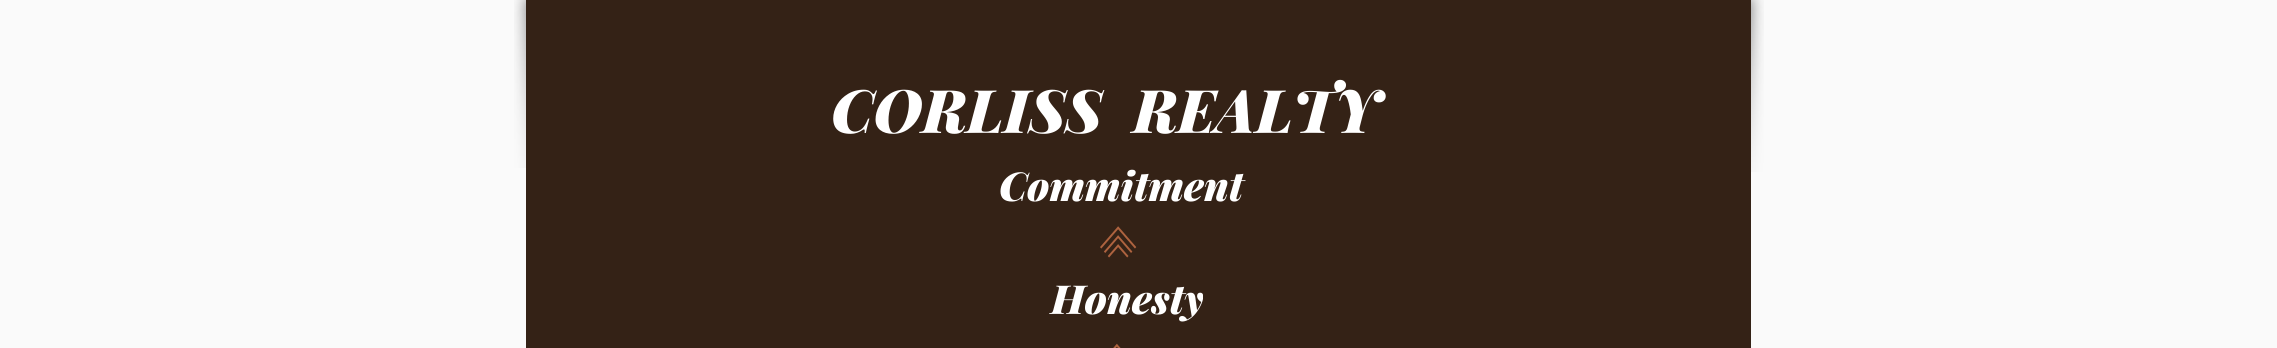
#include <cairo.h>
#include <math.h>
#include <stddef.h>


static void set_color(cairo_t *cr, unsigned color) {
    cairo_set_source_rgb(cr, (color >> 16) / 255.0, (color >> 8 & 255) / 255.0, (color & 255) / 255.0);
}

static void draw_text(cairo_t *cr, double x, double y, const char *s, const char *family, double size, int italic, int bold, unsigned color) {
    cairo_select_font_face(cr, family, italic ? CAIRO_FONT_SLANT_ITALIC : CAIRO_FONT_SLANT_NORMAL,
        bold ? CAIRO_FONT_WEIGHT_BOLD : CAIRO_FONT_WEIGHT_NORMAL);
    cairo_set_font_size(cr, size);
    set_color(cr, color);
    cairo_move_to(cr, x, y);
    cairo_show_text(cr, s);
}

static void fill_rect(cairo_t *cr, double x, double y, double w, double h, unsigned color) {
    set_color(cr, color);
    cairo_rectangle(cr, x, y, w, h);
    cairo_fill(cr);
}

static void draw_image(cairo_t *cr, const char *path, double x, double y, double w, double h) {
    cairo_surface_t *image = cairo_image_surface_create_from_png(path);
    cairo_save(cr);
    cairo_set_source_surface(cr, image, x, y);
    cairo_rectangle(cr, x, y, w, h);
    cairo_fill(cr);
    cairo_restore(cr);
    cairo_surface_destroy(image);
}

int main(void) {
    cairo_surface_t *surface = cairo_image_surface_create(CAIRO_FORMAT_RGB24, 2277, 348);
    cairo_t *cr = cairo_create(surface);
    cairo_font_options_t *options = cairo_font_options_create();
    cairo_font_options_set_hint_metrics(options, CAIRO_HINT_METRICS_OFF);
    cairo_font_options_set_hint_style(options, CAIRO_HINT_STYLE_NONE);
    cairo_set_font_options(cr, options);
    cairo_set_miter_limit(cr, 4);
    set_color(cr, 0xFAFAFA);
    cairo_paint(cr);
    draw_image(cr, "assets/img1.png", 514, 0, 12, 168);
    fill_rect(cr, 526, 0, 1225, 348, 0x342216);
    draw_image(cr, "assets/img2.png", 1751, 0, 13, 172);
    draw_text(cr, 831, 133, "CORLISS  REALTY", "Playfair Display Black", 60, 1, 0, 0xFFFFFF);
    draw_text(cr, 999, 201, "Commitment", "Playfair Display Black", 40, 1, 0, 0xFFFFFF);
    draw_text(cr, 1051, 314, "Honesty", "Playfair Display Black", 40, 1, 0, 0xFFFFFF);
    draw_image(cr, "assets/img3.png", 1100, 226, 37, 32);
    draw_image(cr, "assets/img4.png", 1113, 343, 8, 5);
    cairo_surface_write_to_png(surface, "output.png");
    cairo_font_options_destroy(options);
    cairo_destroy(cr);
    cairo_surface_destroy(surface);
    return 0;
}
